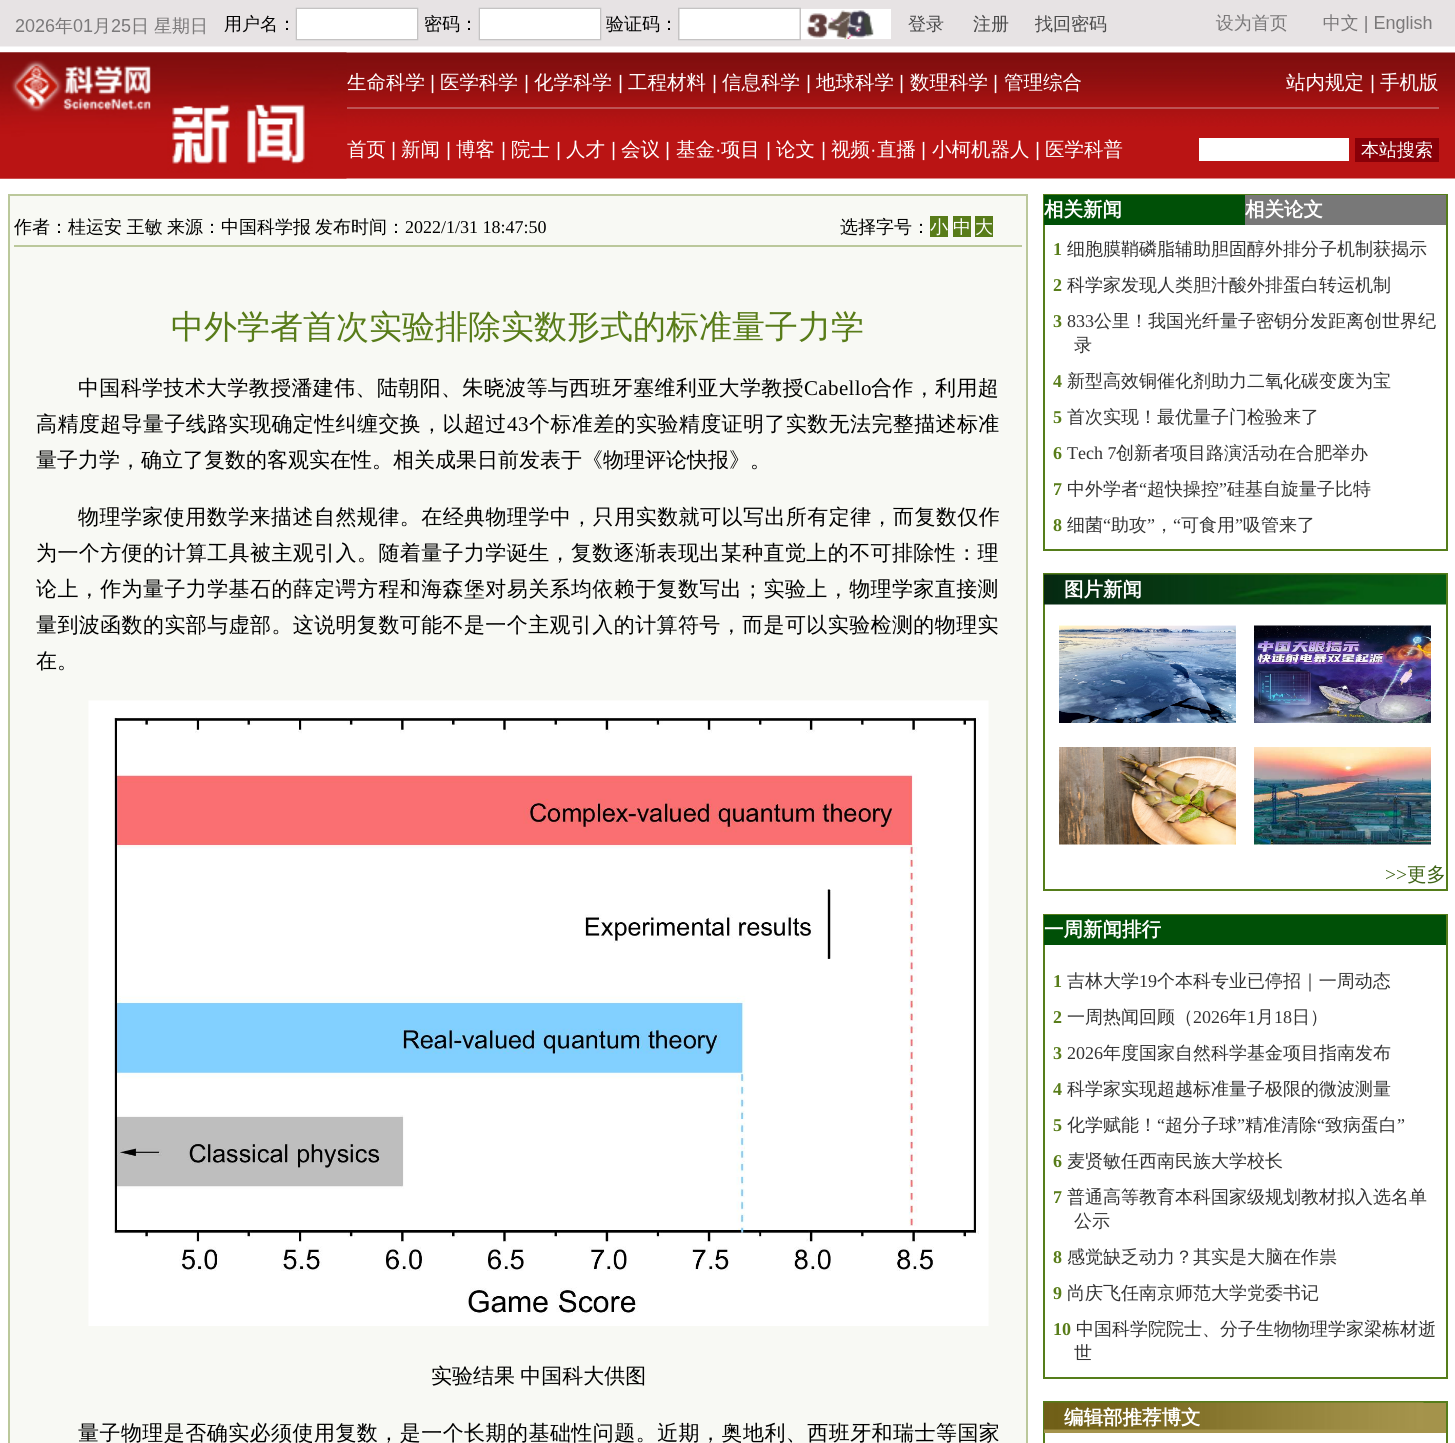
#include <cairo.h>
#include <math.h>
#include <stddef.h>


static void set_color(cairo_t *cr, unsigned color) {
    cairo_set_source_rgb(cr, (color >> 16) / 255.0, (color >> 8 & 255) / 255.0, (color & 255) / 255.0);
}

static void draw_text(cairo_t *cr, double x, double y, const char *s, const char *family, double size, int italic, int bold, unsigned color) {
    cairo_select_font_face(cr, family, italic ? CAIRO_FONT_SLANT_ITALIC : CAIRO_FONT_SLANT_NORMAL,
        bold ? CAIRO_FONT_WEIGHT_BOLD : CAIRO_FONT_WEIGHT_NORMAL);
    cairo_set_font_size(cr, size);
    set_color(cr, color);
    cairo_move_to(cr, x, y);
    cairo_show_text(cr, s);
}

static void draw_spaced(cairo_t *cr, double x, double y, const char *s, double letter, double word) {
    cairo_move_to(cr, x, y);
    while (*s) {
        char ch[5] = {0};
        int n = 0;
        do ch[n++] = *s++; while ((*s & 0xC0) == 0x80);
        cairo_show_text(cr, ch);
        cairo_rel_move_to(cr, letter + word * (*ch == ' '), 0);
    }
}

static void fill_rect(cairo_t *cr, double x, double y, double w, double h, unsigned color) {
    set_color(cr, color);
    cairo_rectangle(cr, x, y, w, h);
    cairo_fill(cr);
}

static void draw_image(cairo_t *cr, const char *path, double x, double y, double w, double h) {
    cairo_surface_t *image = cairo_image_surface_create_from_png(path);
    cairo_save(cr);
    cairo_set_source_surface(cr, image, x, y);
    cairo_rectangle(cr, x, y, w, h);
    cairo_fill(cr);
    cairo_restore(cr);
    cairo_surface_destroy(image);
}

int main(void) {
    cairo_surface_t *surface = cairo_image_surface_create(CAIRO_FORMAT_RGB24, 1455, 1443);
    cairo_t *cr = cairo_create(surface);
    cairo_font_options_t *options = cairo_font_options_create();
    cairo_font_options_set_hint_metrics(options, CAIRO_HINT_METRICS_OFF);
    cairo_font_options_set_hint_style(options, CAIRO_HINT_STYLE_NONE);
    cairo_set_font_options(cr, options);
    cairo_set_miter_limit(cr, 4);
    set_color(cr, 0xFFFFFF);
    cairo_paint(cr);
    draw_image(cr, "assets/img1.png", 0, 0, 1455, 47);
    draw_image(cr, "assets/img2.png", 0, 52, 1455, 127);
    draw_image(cr, "assets/img3.png", 0, 52, 347, 127);
    fill_rect(cr, 347, 107, 1092, 2, 0xBD5354);
    draw_text(cr, 347, 89, "生命科学", "WenQuanYi Zen Hei Medium", 19.5, 0, 0, 0xFFFFFF);
    draw_text(cr, 430, 89, "|", "Liberation Sans", 19.5, 0, 0, 0xFFFFFF);
    draw_text(cr, 440, 89, "医学科学", "WenQuanYi Zen Hei Medium", 19.5, 0, 0, 0xFFFFFF);
    draw_text(cr, 524, 89, "|", "Liberation Sans", 19.5, 0, 0, 0xFFFFFF);
    draw_text(cr, 534, 89, "化学科学", "WenQuanYi Zen Hei Medium", 19.5, 0, 0, 0xFFFFFF);
    draw_text(cr, 618, 89, "|", "Liberation Sans", 19.5, 0, 0, 0xFFFFFF);
    draw_text(cr, 628, 89, "工程材料", "WenQuanYi Zen Hei Medium", 19.5, 0, 0, 0xFFFFFF);
    draw_text(cr, 712, 89, "|", "Liberation Sans", 19.5, 0, 0, 0xFFFFFF);
    draw_text(cr, 722, 89, "信息科学", "WenQuanYi Zen Hei Medium", 19.5, 0, 0, 0xFFFFFF);
    draw_text(cr, 806, 89, "|", "Liberation Sans", 19.5, 0, 0, 0xFFFFFF);
    draw_text(cr, 816, 89, "地球科学", "WenQuanYi Zen Hei Medium", 19.5, 0, 0, 0xFFFFFF);
    draw_text(cr, 899, 89, "|", "Liberation Sans", 19.5, 0, 0, 0xFFFFFF);
    draw_text(cr, 910, 89, "数理科学", "WenQuanYi Zen Hei Medium", 19.5, 0, 0, 0xFFFFFF);
    draw_text(cr, 993, 89, "|", "Liberation Sans", 19.5, 0, 0, 0xFFFFFF);
    draw_text(cr, 1004, 89, "管理综合", "WenQuanYi Zen Hei Medium", 19.5, 0, 0, 0xFFFFFF);
    draw_text(cr, 1286, 89, "站内规定", "WenQuanYi Zen Hei Medium", 19.5, 0, 0, 0xFFFFFF);
    draw_text(cr, 1370, 89, "|", "Liberation Sans", 19.5, 0, 0, 0xFFFFFF);
    draw_text(cr, 1380, 89, "手机版", "WenQuanYi Zen Hei Medium", 19.5, 0, 0, 0xFFFFFF);
    draw_text(cr, 347, 156, "首页", "WenQuanYi Zen Hei Medium", 19.5, 0, 0, 0xFFFFFF);
    draw_text(cr, 391, 156, "|", "Liberation Sans", 19.5, 0, 0, 0xFFFFFF);
    draw_text(cr, 401, 156, "新闻", "WenQuanYi Zen Hei Medium", 19.5, 0, 0, 0xFFFFFF);
    draw_text(cr, 446, 156, "|", "Liberation Sans", 19.5, 0, 0, 0xFFFFFF);
    draw_text(cr, 456, 156, "博客", "WenQuanYi Zen Hei Medium", 19.5, 0, 0, 0xFFFFFF);
    draw_text(cr, 501, 156, "|", "Liberation Sans", 19.5, 0, 0, 0xFFFFFF);
    draw_text(cr, 511, 156, "院士", "WenQuanYi Zen Hei Medium", 19.5, 0, 0, 0xFFFFFF);
    draw_text(cr, 556, 156, "|", "Liberation Sans", 19.5, 0, 0, 0xFFFFFF);
    draw_text(cr, 566, 156, "人才", "WenQuanYi Zen Hei Medium", 19.5, 0, 0, 0xFFFFFF);
    draw_text(cr, 611, 156, "|", "Liberation Sans", 19.5, 0, 0, 0xFFFFFF);
    draw_text(cr, 621, 156, "会议", "WenQuanYi Zen Hei Medium", 19.5, 0, 0, 0xFFFFFF);
    draw_text(cr, 665, 156, "|", "Liberation Sans", 19.5, 0, 0, 0xFFFFFF);
    draw_text(cr, 676, 156, "基金", "WenQuanYi Zen Hei Medium", 19.5, 0, 0, 0xFFFFFF);
    draw_text(cr, 715, 156, "·", "Liberation Sans", 19.5, 0, 0, 0xFFFFFF);
    draw_text(cr, 721, 156, "项目", "WenQuanYi Zen Hei Medium", 19.5, 0, 0, 0xFFFFFF);
    draw_text(cr, 766, 156, "|", "Liberation Sans", 19.5, 0, 0, 0xFFFFFF);
    draw_text(cr, 776, 156, "论文", "WenQuanYi Zen Hei Medium", 19.5, 0, 0, 0xFFFFFF);
    draw_text(cr, 821, 156, "|", "Liberation Sans", 19.5, 0, 0, 0xFFFFFF);
    draw_text(cr, 831, 156, "视频", "WenQuanYi Zen Hei Medium", 19.5, 0, 0, 0xFFFFFF);
    draw_text(cr, 870, 156, "·", "Liberation Sans", 19.5, 0, 0, 0xFFFFFF);
    draw_text(cr, 877, 156, "直播", "WenQuanYi Zen Hei Medium", 19.5, 0, 0, 0xFFFFFF);
    draw_text(cr, 921, 156, "|", "Liberation Sans", 19.5, 0, 0, 0xFFFFFF);
    draw_text(cr, 932, 156, "小柯机器人", "WenQuanYi Zen Hei Medium", 19.5, 0, 0, 0xFFFFFF);
    draw_text(cr, 1035, 156, "|", "Liberation Sans", 19.5, 0, 0, 0xFFFFFF);
    draw_text(cr, 1045, 156, "医学科普", "WenQuanYi Zen Hei Medium", 19.5, 0, 0, 0xFFFFFF);
    fill_rect(cr, 1199, 138, 150, 23, 0xFFFFFF);
    fill_rect(cr, 1355, 138, 84, 24, 0x880008);
    draw_text(cr, 1361, 156, "本站搜索", "WenQuanYi Zen Hei Medium", 18, 0, 0, 0xFFFFFF);
    set_color(cr, 0xF8F9F4);
    cairo_rectangle(cr, 9, 195, 1018, 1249);
    cairo_fill_preserve(cr);
    set_color(cr, 0xBBC89B);
    cairo_stroke(cr);
    fill_rect(cr, 14, 245, 1008, 2, 0xBBC89B);
    set_color(cr, 0x000000);
    draw_spaced(cr, 14, 233, "作者：桂运安 王敏", 0, -1);
    draw_text(cr, 167, 233, "来源：中国科学报", "WenQuanYi Zen Hei Medium", 18, 0, 0, 0x000000);
    draw_text(cr, 315, 233, "发布时间：", "WenQuanYi Zen Hei Medium", 18, 0, 0, 0x000000);
    draw_text(cr, 405, 233, "2022/1/31 18:47:50", "Liberation Serif", 18, 0, 0, 0x000000);
    draw_text(cr, 840, 233, "选择字号：", "WenQuanYi Zen Hei Medium", 18, 0, 0, 0x000000);
    fill_rect(cr, 930, 216, 18, 21, 0x587C19);
    draw_text(cr, 930, 233, "小", "WenQuanYi Zen Hei Medium", 18, 0, 0, 0xFFFFFF);
    fill_rect(cr, 953, 216, 18, 21, 0x587C19);
    draw_text(cr, 953, 233, "中", "WenQuanYi Zen Hei Medium", 18, 0, 0, 0xFFFFFF);
    fill_rect(cr, 975, 216, 18, 21, 0x587C19);
    draw_text(cr, 975, 233, "大", "WenQuanYi Zen Hei Medium", 18, 0, 0, 0xFFFFFF);
    draw_text(cr, 171, 338, "中外学者首次实验排除实数形式的标准量子力学", "WenQuanYi Zen Hei Medium", 33, 0, 0, 0x587C19);
    cairo_set_font_size(cr, 21);
    set_color(cr, 0x000000);
    draw_spaced(cr, 78, 395, "中国科学技术大学教授潘建伟、陆朝阳、朱晓波等与西班牙塞维利亚大学教授", 0.35, 0);
    cairo_select_font_face(cr, "Liberation Serif", CAIRO_FONT_SLANT_NORMAL, CAIRO_FONT_WEIGHT_NORMAL);
    draw_spaced(cr, 804, 395, "Cabello", 0.35, 0);
    cairo_select_font_face(cr, "WenQuanYi Zen Hei Medium", CAIRO_FONT_SLANT_NORMAL, CAIRO_FONT_WEIGHT_NORMAL);
    draw_spaced(cr, 871, 395, "合作，利用超", 0.35, 0);
    draw_spaced(cr, 36, 431, "高精度超导量子线路实现确定性纠缠交换，以超过", 0.4, 0);
    cairo_select_font_face(cr, "Liberation Serif", CAIRO_FONT_SLANT_NORMAL, CAIRO_FONT_WEIGHT_NORMAL);
    draw_spaced(cr, 507, 431, "43", 0.4, 0);
    cairo_select_font_face(cr, "WenQuanYi Zen Hei Medium", CAIRO_FONT_SLANT_NORMAL, CAIRO_FONT_WEIGHT_NORMAL);
    draw_spaced(cr, 529, 431, "个标准差的实验精度证明了实数无法完整描述标准", 0.4, 0);
    draw_text(cr, 36, 467, "量子力学，确立了复数的客观实在性。相关成果日前发表于《物理评论快报》。", "WenQuanYi Zen Hei Medium", 21, 0, 0, 0x000000);
    draw_spaced(cr, 78, 524, "物理学家使用数学来描述自然规律。在经典物理学中，只用实数就可以写出所有定律，而复数仅作", 0.45, 0);
    draw_spaced(cr, 36, 560, "为一个方便的计算工具被主观引入。随着量子力学诞生，复数逐渐表现出某种直觉上的不可排除性：理", 0.4, 0);
    draw_spaced(cr, 36, 596, "论上，作为量子力学基石的薛定谔方程和海森堡对易关系均依赖于复数写出；实验上，物理学家直接测", 0.4, 0);
    draw_spaced(cr, 36, 632, "量到波函数的实部与虚部。这说明复数可能不是一个主观引入的计算符号，而是可以实验检测的物理实", 0.4, 0);
    draw_text(cr, 36, 668, "在。", "WenQuanYi Zen Hei Medium", 21, 0, 0, 0x000000);
    draw_image(cr, "assets/img4.png", 88, 700, 901, 626);
    draw_spaced(cr, 431, 1383, "实验结果 中国科大供图", 0, -1);
    draw_spaced(cr, 78, 1440, "量子物理是否确实必须使用复数，是一个长期的基础性问题。近期，奥地利、西班牙和瑞士等国家", 0.45, 0);
    cairo_rectangle(cr, 1044, 195, 403, 355);
    set_color(cr, 0x557D1A);
    cairo_stroke(cr);
    fill_rect(cr, 1044, 195, 201, 30, 0x005007);
    draw_text(cr, 1044, 216, "相关新闻", "WenQuanYi Zen Hei", 19.5, 0, 1, 0xFFFFFF);
    fill_rect(cr, 1245, 195, 201, 30, 0x787878);
    draw_text(cr, 1245, 216, "相关论文", "WenQuanYi Zen Hei", 19.5, 0, 1, 0xFFFFFF);
    draw_text(cr, 1053, 255, "1", "Liberation Serif", 18, 0, 1, 0x587C19);
    draw_text(cr, 1067, 255, "细胞膜鞘磷脂辅助胆固醇外排分子机制获揭示", "WenQuanYi Zen Hei Medium", 18, 0, 0, 0x333333);
    draw_text(cr, 1053, 291, "2", "Liberation Serif", 18, 0, 1, 0x587C19);
    draw_text(cr, 1067, 291, "科学家发现人类胆汁酸外排蛋白转运机制", "WenQuanYi Zen Hei Medium", 18, 0, 0, 0x333333);
    draw_text(cr, 1053, 327, "3", "Liberation Serif", 18, 0, 1, 0x587C19);
    draw_text(cr, 1067, 327, "833", "Liberation Serif", 18, 0, 0, 0x333333);
    draw_text(cr, 1094, 327, "公里！我国光纤量子密钥分发距离创世界纪", "WenQuanYi Zen Hei Medium", 18, 0, 0, 0x333333);
    draw_text(cr, 1074, 351, "录", "WenQuanYi Zen Hei Medium", 18, 0, 0, 0x333333);
    draw_text(cr, 1053, 387, "4", "Liberation Serif", 18, 0, 1, 0x587C19);
    draw_text(cr, 1067, 387, "新型高效铜催化剂助力二氧化碳变废为宝", "WenQuanYi Zen Hei Medium", 18, 0, 0, 0x333333);
    draw_text(cr, 1053, 423, "5", "Liberation Serif", 18, 0, 1, 0x587C19);
    draw_text(cr, 1067, 423, "首次实现！最优量子门检验来了", "WenQuanYi Zen Hei Medium", 18, 0, 0, 0x333333);
    draw_text(cr, 1053, 459, "6", "Liberation Serif", 18, 0, 1, 0x587C19);
    draw_text(cr, 1067, 459, "Tech 7", "Liberation Serif", 18, 0, 0, 0x333333);
    draw_text(cr, 1116, 459, "创新者项目路演活动在合肥举办", "WenQuanYi Zen Hei Medium", 18, 0, 0, 0x333333);
    draw_text(cr, 1053, 495, "7", "Liberation Serif", 18, 0, 1, 0x587C19);
    draw_text(cr, 1067, 495, "中外学者", "WenQuanYi Zen Hei Medium", 18, 0, 0, 0x333333);
    draw_text(cr, 1139, 495, "“", "Liberation Serif", 18, 0, 0, 0x333333);
    draw_text(cr, 1147, 495, "超快操控", "WenQuanYi Zen Hei Medium", 18, 0, 0, 0x333333);
    draw_text(cr, 1219, 495, "”", "Liberation Serif", 18, 0, 0, 0x333333);
    draw_text(cr, 1227, 495, "硅基自旋量子比特", "WenQuanYi Zen Hei Medium", 18, 0, 0, 0x333333);
    draw_text(cr, 1053, 531, "8", "Liberation Serif", 18, 0, 1, 0x587C19);
    draw_text(cr, 1067, 531, "细菌", "WenQuanYi Zen Hei Medium", 18, 0, 0, 0x333333);
    draw_text(cr, 1103, 531, "“", "Liberation Serif", 18, 0, 0, 0x333333);
    draw_text(cr, 1111, 531, "助攻", "WenQuanYi Zen Hei Medium", 18, 0, 0, 0x333333);
    draw_text(cr, 1147, 531, "”", "Liberation Serif", 18, 0, 0, 0x333333);
    draw_text(cr, 1173, 531, "“", "Liberation Serif", 18, 0, 0, 0x333333);
    draw_text(cr, 1181, 531, "可食用", "WenQuanYi Zen Hei Medium", 18, 0, 0, 0x333333);
    draw_text(cr, 1235, 531, "”", "Liberation Serif", 18, 0, 0, 0x333333);
    draw_text(cr, 1243, 531, "吸管来了", "WenQuanYi Zen Hei Medium", 18, 0, 0, 0x333333);
    draw_text(cr, 1155, 531, "，", "WenQuanYi Zen Hei Medium", 18, 0, 0, 0x333333);
    cairo_rectangle(cr, 1044, 574, 403, 316);
    set_color(cr, 0x557D1A);
    cairo_stroke(cr);
    draw_image(cr, "assets/img5.png", 1044, 574, 402, 31);
    draw_text(cr, 1064, 596, "图片新闻", "WenQuanYi Zen Hei", 19.5, 0, 1, 0xFFFFFF);
    draw_image(cr, "assets/img6.png", 1059, 625, 177, 98);
    draw_image(cr, "assets/img7.png", 1254, 625, 177, 98);
    draw_image(cr, "assets/img8.png", 1059, 747, 177, 98);
    draw_image(cr, "assets/img9.png", 1254, 747, 177, 98);
    draw_text(cr, 1385, 881, ">>", "Liberation Serif", 19.5, 0, 0, 0x3F6417);
    draw_text(cr, 1407, 881, "更多", "WenQuanYi Zen Hei Medium", 19.5, 0, 0, 0x3F6417);
    cairo_rectangle(cr, 1044, 915, 403, 463);
    set_color(cr, 0x557D1A);
    cairo_stroke(cr);
    fill_rect(cr, 1044, 915, 402, 30, 0x005007);
    draw_text(cr, 1044, 936, "一周新闻排行", "WenQuanYi Zen Hei", 19.5, 0, 1, 0xFFFFFF);
    draw_text(cr, 1053, 987, "1", "Liberation Serif", 18, 0, 1, 0x587C19);
    draw_text(cr, 1067, 987, "吉林大学", "WenQuanYi Zen Hei Medium", 18, 0, 0, 0x333333);
    draw_text(cr, 1139, 987, "19", "Liberation Serif", 18, 0, 0, 0x333333);
    draw_text(cr, 1157, 987, "个本科专业已停招｜一周动态", "WenQuanYi Zen Hei Medium", 18, 0, 0, 0x333333);
    draw_text(cr, 1053, 1023, "2", "Liberation Serif", 18, 0, 1, 0x587C19);
    draw_text(cr, 1067, 1023, "一周热闻回顾（", "WenQuanYi Zen Hei Medium", 18, 0, 0, 0x333333);
    draw_text(cr, 1193, 1023, "2026", "Liberation Serif", 18, 0, 0, 0x333333);
    draw_text(cr, 1229, 1023, "年", "WenQuanYi Zen Hei Medium", 18, 0, 0, 0x333333);
    draw_text(cr, 1247, 1023, "1", "Liberation Serif", 18, 0, 0, 0x333333);
    draw_text(cr, 1256, 1023, "月", "WenQuanYi Zen Hei Medium", 18, 0, 0, 0x333333);
    draw_text(cr, 1274, 1023, "18", "Liberation Serif", 18, 0, 0, 0x333333);
    draw_text(cr, 1292, 1023, "日）", "WenQuanYi Zen Hei Medium", 18, 0, 0, 0x333333);
    draw_text(cr, 1053, 1059, "3", "Liberation Serif", 18, 0, 1, 0x587C19);
    draw_text(cr, 1067, 1059, "2026", "Liberation Serif", 18, 0, 0, 0x333333);
    draw_text(cr, 1103, 1059, "年度国家自然科学基金项目指南发布", "WenQuanYi Zen Hei Medium", 18, 0, 0, 0x333333);
    draw_text(cr, 1053, 1095, "4", "Liberation Serif", 18, 0, 1, 0x587C19);
    draw_text(cr, 1067, 1095, "科学家实现超越标准量子极限的微波测量", "WenQuanYi Zen Hei Medium", 18, 0, 0, 0x333333);
    draw_text(cr, 1053, 1131, "5", "Liberation Serif", 18, 0, 1, 0x587C19);
    draw_text(cr, 1067, 1131, "化学赋能！", "WenQuanYi Zen Hei Medium", 18, 0, 0, 0x333333);
    draw_text(cr, 1157, 1131, "“", "Liberation Serif", 18, 0, 0, 0x333333);
    draw_text(cr, 1165, 1131, "超分子球", "WenQuanYi Zen Hei Medium", 18, 0, 0, 0x333333);
    draw_text(cr, 1237, 1131, "”", "Liberation Serif", 18, 0, 0, 0x333333);
    draw_text(cr, 1245, 1131, "精准清除", "WenQuanYi Zen Hei Medium", 18, 0, 0, 0x333333);
    draw_text(cr, 1317, 1131, "“", "Liberation Serif", 18, 0, 0, 0x333333);
    draw_text(cr, 1325, 1131, "致病蛋白", "WenQuanYi Zen Hei Medium", 18, 0, 0, 0x333333);
    draw_text(cr, 1397, 1131, "”", "Liberation Serif", 18, 0, 0, 0x333333);
    draw_text(cr, 1053, 1167, "6", "Liberation Serif", 18, 0, 1, 0x587C19);
    draw_text(cr, 1067, 1167, "麦贤敏任西南民族大学校长", "WenQuanYi Zen Hei Medium", 18, 0, 0, 0x333333);
    draw_text(cr, 1053, 1203, "7", "Liberation Serif", 18, 0, 1, 0x587C19);
    draw_text(cr, 1067, 1203, "普通高等教育本科国家级规划教材拟入选名单", "WenQuanYi Zen Hei Medium", 18, 0, 0, 0x333333);
    draw_text(cr, 1074, 1227, "公示", "WenQuanYi Zen Hei Medium", 18, 0, 0, 0x333333);
    draw_text(cr, 1053, 1263, "8", "Liberation Serif", 18, 0, 1, 0x587C19);
    draw_text(cr, 1067, 1263, "感觉缺乏动力？其实是大脑在作祟", "WenQuanYi Zen Hei Medium", 18, 0, 0, 0x333333);
    draw_text(cr, 1053, 1299, "9", "Liberation Serif", 18, 0, 1, 0x587C19);
    draw_text(cr, 1067, 1299, "尚庆飞任南京师范大学党委书记", "WenQuanYi Zen Hei Medium", 18, 0, 0, 0x333333);
    draw_text(cr, 1053, 1335, "10", "Liberation Serif", 18, 0, 1, 0x587C19);
    draw_text(cr, 1076, 1335, "中国科学院院士、分子生物物理学家梁栋材逝", "WenQuanYi Zen Hei Medium", 18, 0, 0, 0x333333);
    draw_text(cr, 1074, 1359, "世", "WenQuanYi Zen Hei Medium", 18, 0, 0, 0x333333);
    cairo_rectangle(cr, 1044, 1402, 403, 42);
    set_color(cr, 0x557D1A);
    cairo_stroke(cr);
    fill_rect(cr, 1044, 1403, 402, 30, 0xA4934B);
    draw_image(cr, "assets/img10.png", 1044, 1402, 380, 28);
    draw_text(cr, 1064, 1424, "编辑部推荐博文", "WenQuanYi Zen Hei", 19.5, 0, 1, 0xFFFFFF);
    cairo_surface_write_to_png(surface, "output.png");
    cairo_font_options_destroy(options);
    cairo_destroy(cr);
    cairo_surface_destroy(surface);
    return 0;
}
